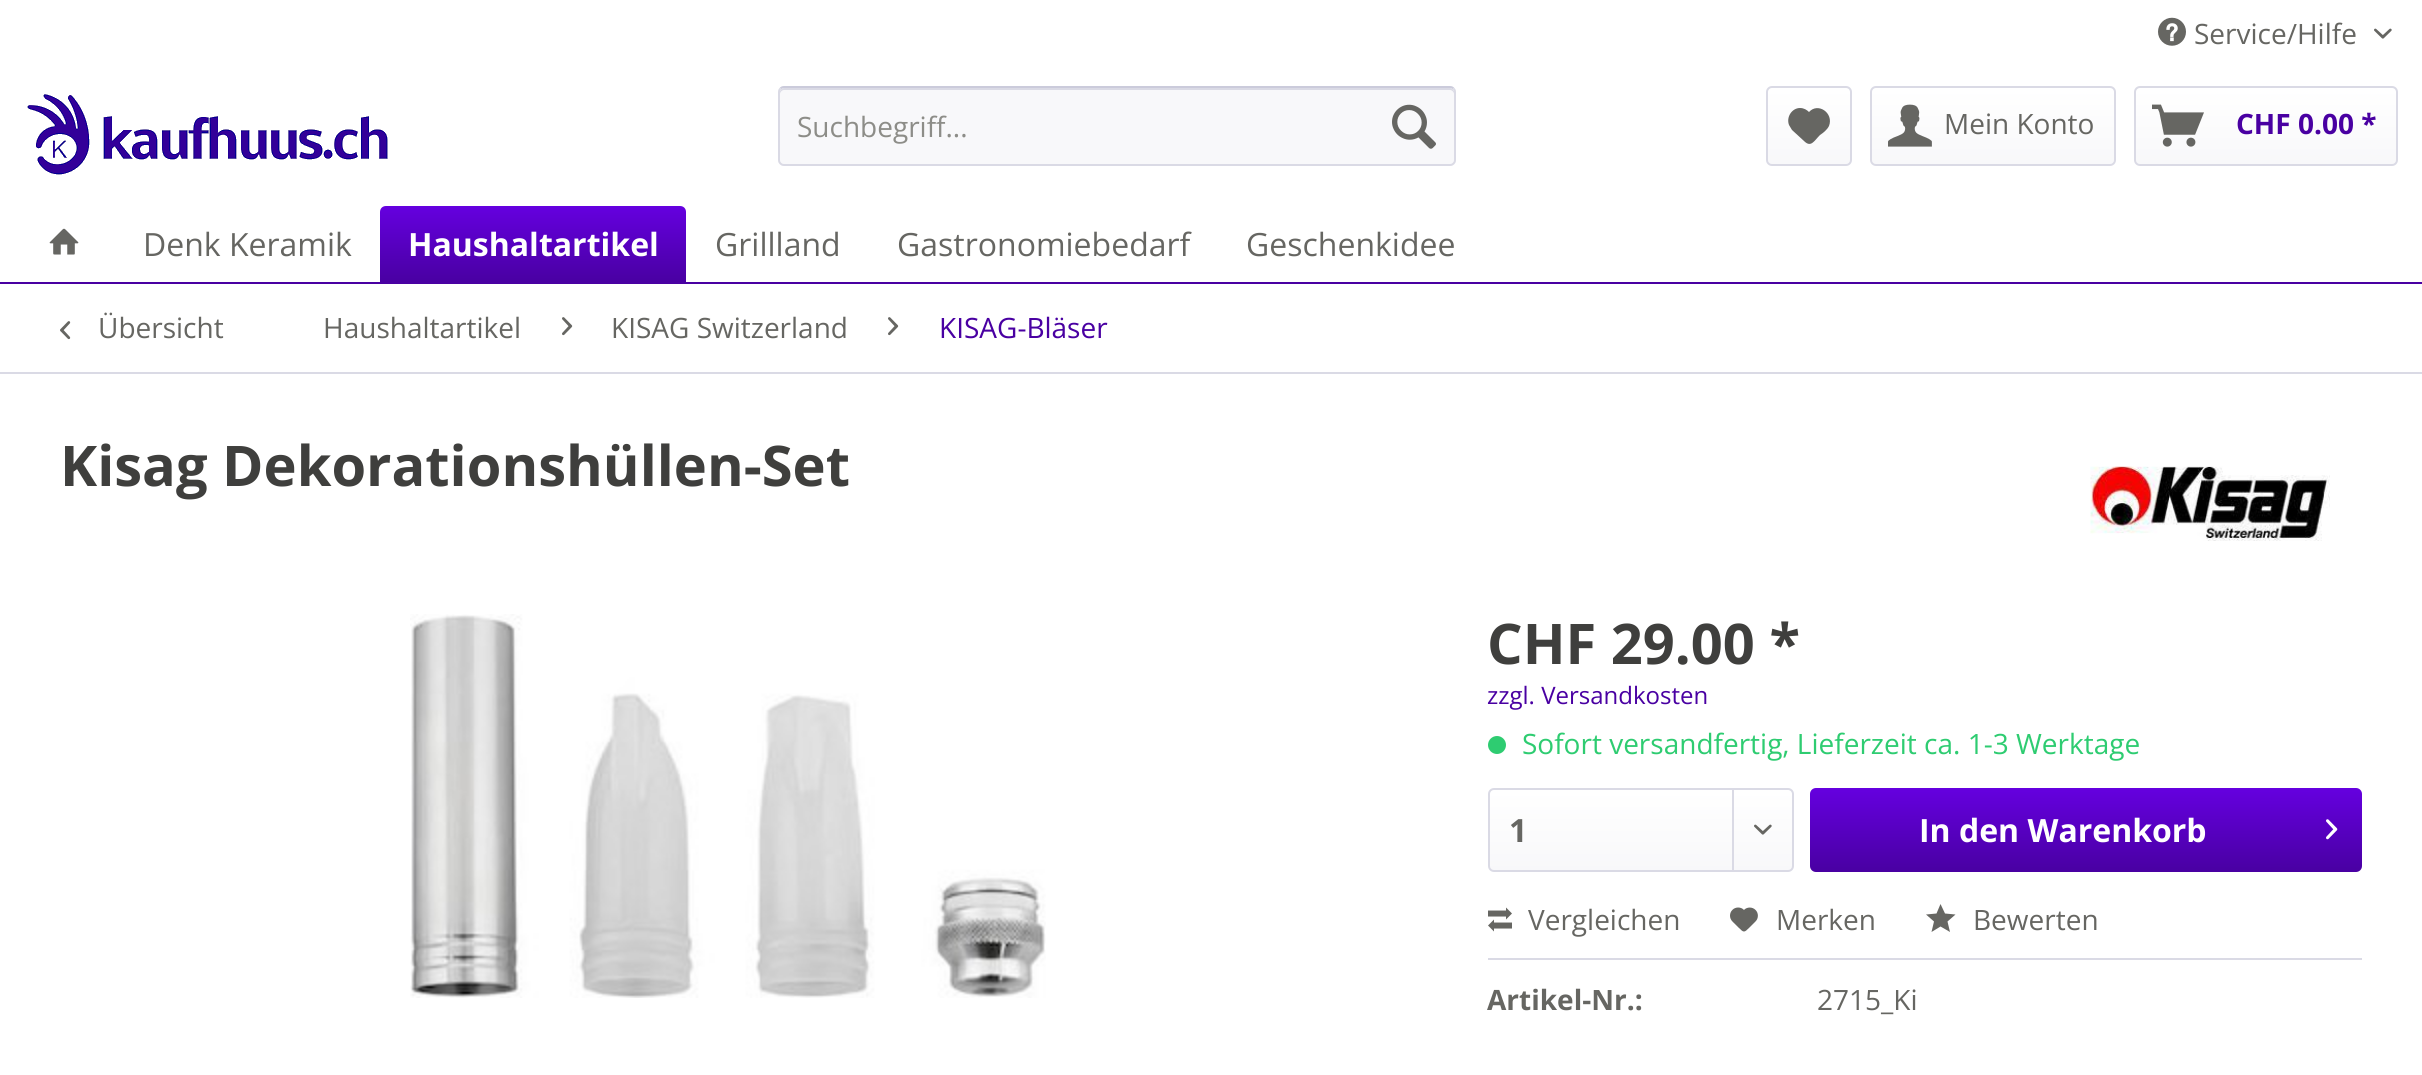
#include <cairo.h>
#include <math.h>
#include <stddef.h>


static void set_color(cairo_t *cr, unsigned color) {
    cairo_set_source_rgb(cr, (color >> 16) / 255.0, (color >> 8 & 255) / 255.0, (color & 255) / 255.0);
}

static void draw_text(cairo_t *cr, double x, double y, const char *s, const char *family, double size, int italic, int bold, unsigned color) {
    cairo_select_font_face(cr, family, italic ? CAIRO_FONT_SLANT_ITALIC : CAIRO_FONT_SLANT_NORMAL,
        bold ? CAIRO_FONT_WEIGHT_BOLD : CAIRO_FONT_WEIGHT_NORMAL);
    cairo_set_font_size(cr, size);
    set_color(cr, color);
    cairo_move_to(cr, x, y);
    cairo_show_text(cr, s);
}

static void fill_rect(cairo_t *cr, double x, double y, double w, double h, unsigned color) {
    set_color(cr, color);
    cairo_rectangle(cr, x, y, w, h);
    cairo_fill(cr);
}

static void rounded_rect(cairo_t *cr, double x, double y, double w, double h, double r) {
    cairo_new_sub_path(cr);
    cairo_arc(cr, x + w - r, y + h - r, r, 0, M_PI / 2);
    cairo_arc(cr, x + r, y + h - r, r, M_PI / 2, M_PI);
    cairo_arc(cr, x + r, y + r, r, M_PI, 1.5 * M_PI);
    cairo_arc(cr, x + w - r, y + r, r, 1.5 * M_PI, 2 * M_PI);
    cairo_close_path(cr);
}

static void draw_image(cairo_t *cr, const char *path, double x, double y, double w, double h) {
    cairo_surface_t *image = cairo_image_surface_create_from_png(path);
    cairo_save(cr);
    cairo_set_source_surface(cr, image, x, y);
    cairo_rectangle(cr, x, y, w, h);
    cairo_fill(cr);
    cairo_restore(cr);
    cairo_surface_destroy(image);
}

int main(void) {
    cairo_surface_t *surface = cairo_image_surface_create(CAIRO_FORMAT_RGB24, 2422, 1075);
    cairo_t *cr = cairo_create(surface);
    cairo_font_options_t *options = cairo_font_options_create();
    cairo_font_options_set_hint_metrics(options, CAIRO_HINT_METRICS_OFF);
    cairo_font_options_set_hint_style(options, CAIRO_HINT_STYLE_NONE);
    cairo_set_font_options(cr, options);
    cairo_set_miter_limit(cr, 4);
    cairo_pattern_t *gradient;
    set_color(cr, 0xFFFFFF);
    cairo_paint(cr);
    draw_image(cr, "assets/img1.png", 2158, 17, 28, 29);
    draw_text(cr, 2194, 44, "Service/Hilfe", "Open Sans", 28, 0, 0, 0x666662);
    draw_image(cr, "assets/img2.png", 2374, 28, 18, 11);
    draw_image(cr, "assets/img3.png", 27, 94, 361, 81);
    set_color(cr, 0xF8F8FA);
    rounded_rect(cr, 778, 86, 678, 80, 6);
    cairo_fill(cr);
    set_color(cr, 0xDADAE5);
    cairo_new_path(cr);
    cairo_move_to(cr, 784, 90);
    cairo_line_to(cr, 1450, 90);
    cairo_curve_to(cr, 1452, 90, 1454, 92, 1454, 94);
    cairo_line_to(cr, 1454, 92);
    cairo_curve_to(cr, 1454, 90, 1452, 88, 1450, 88);
    cairo_line_to(cr, 784, 88);
    cairo_curve_to(cr, 782, 88, 780, 90, 780, 92);
    cairo_line_to(cr, 780, 94);
    cairo_curve_to(cr, 780, 92, 782, 90, 784, 90);
    cairo_close_path(cr);
    cairo_fill(cr);
    cairo_new_path(cr);
    cairo_move_to(cr, 780.5, 88.5);
    cairo_curve_to(cr, 781.5, 87.5, 782.5, 87, 784, 87);
    cairo_line_to(cr, 1450, 87);
    cairo_curve_to(cr, 1451.5, 87, 1452.5, 87.5, 1453.5, 88.5);
    set_color(cr, 0xCBCBDB);
    cairo_stroke(cr);
    cairo_new_path(cr);
    cairo_move_to(cr, 1453.5, 88.5);
    cairo_curve_to(cr, 1454.5, 89.5, 1455, 90.5, 1455, 92);
    cairo_line_to(cr, 1455, 160);
    cairo_curve_to(cr, 1455, 161.5, 1454.5, 162.5, 1453.5, 163.5);
    cairo_curve_to(cr, 1452.5, 164.5, 1451.5, 165, 1450, 165);
    cairo_line_to(cr, 784, 165);
    cairo_curve_to(cr, 782.5, 165, 781.5, 164.5, 780.5, 163.5);
    cairo_curve_to(cr, 779.5, 162.5, 779, 161.5, 779, 160);
    cairo_line_to(cr, 779, 92);
    cairo_curve_to(cr, 779, 90.5, 779.5, 89.5, 780.5, 88.5);
    set_color(cr, 0xDADAE5);
    cairo_stroke(cr);
    draw_text(cr, 797, 137, "Suchbegriff...", "Open Sans", 28, 0, 0, 0x8D8D88);
    draw_image(cr, "assets/img4.png", 1392, 104, 44, 45);
    gradient = cairo_pattern_create_linear(1809, 88, 1809, 164);
    cairo_pattern_add_color_stop_rgba(gradient, 0, 1, 1, 1, 1);
    cairo_pattern_add_color_stop_rgba(gradient, 1, 0.973, 0.973, 0.98, 1);
    cairo_set_source(cr, gradient);
    cairo_pattern_destroy(gradient);
    rounded_rect(cr, 1768, 88, 82, 76, 4);
    cairo_fill(cr);
    rounded_rect(cr, 1767, 87, 84, 78, 5);
    set_color(cr, 0xDADAE5);
    cairo_stroke(cr);
    set_color(cr, 0x666662);
    cairo_new_path(cr);
    cairo_move_to(cr, 1800, 108);
    cairo_curve_to(cr, 1792, 108, 1786, 117, 1789, 125);
    cairo_line_to(cr, 1792, 130);
    cairo_line_to(cr, 1804, 141);
    cairo_curve_to(cr, 1811, 148, 1814, 141, 1820, 135);
    cairo_curve_to(cr, 1823, 133, 1827, 130, 1829, 126);
    cairo_curve_to(cr, 1834, 113, 1818, 102, 1809, 112);
    cairo_curve_to(cr, 1807, 110, 1804, 108, 1800, 108);
    cairo_close_path(cr);
    cairo_fill(cr);
    gradient = cairo_pattern_create_linear(1993, 88, 1993, 164);
    cairo_pattern_add_color_stop_rgba(gradient, 0, 1, 1, 1, 1);
    cairo_pattern_add_color_stop_rgba(gradient, 1, 0.973, 0.973, 0.98, 1);
    cairo_set_source(cr, gradient);
    cairo_pattern_destroy(gradient);
    rounded_rect(cr, 1872, 88, 242, 76, 4);
    cairo_fill(cr);
    rounded_rect(cr, 1871, 87, 244, 78, 5);
    set_color(cr, 0xDADAE5);
    cairo_stroke(cr);
    draw_image(cr, "assets/img5.png", 1888, 104, 44, 43);
    draw_text(cr, 1944, 134, "Mein Konto", "Open Sans", 28, 0, 0, 0x666662);
    gradient = cairo_pattern_create_linear(2266, 88, 2266, 164);
    cairo_pattern_add_color_stop_rgba(gradient, 0, 1, 1, 1, 1);
    cairo_pattern_add_color_stop_rgba(gradient, 1, 0.973, 0.973, 0.98, 1);
    cairo_set_source(cr, gradient);
    cairo_pattern_destroy(gradient);
    rounded_rect(cr, 2136, 88, 260, 76, 4);
    cairo_fill(cr);
    rounded_rect(cr, 2135, 87, 262, 78, 5);
    set_color(cr, 0xDADAE5);
    cairo_stroke(cr);
    draw_image(cr, "assets/img6.png", 2152, 104, 52, 43);
    draw_text(cr, 2236, 134, "CHF 0.00 *", "Open Sans", 28, 0, 1, 0x4900A2);
    fill_rect(cr, 0, 282, 2422, 2, 0x4900A2);
    draw_image(cr, "assets/img7.png", 49, 228, 30, 27);
    draw_text(cr, 143, 256, "Denk Keramik", "Open Sans", 32, 0, 0, 0x666662);
    gradient = cairo_pattern_create_linear(533, 206, 533, 282);
    cairo_pattern_add_color_stop_rgba(gradient, 0, 0.396, 0, 0.875, 1);
    cairo_pattern_add_color_stop_rgba(gradient, 1, 0.286, 0, 0.635, 1);
    cairo_set_source(cr, gradient);
    cairo_pattern_destroy(gradient);
    cairo_new_path(cr);
    cairo_move_to(cr, 386, 206);
    cairo_line_to(cr, 680, 206);
    cairo_curve_to(cr, 683.5, 206, 686, 208.5, 686, 212);
    cairo_line_to(cr, 686, 282);
    cairo_line_to(cr, 380, 282);
    cairo_line_to(cr, 380, 212);
    cairo_curve_to(cr, 380, 208.5, 382.5, 206, 386, 206);
    cairo_close_path(cr);
    cairo_fill(cr);
    draw_text(cr, 408, 256, "Haushaltartikel", "Open Sans", 32, 0, 1, 0xFFFFFF);
    draw_text(cr, 715, 256, "Grillland", "Open Sans", 32, 0, 0, 0x666662);
    draw_text(cr, 897, 256, "Gastronomiebedarf", "Open Sans", 32, 0, 0, 0x666662);
    draw_text(cr, 1246, 256, "Geschenkidee", "Open Sans", 32, 0, 0, 0x666662);
    fill_rect(cr, 0, 372, 2422, 2, 0xDADAE5);
    draw_image(cr, "assets/img8.png", 60, 321, 11, 19);
    draw_text(cr, 98, 338, "Übersicht", "Open Sans", 28, 0, 0, 0x666662);
    draw_text(cr, 323, 338, "Haushaltartikel", "Open Sans", 28, 0, 0, 0x666662);
    draw_image(cr, "assets/img9.png", 562, 317, 11, 19);
    draw_text(cr, 611, 338, "KISAG Switzerland", "Open Sans", 28, 0, 0, 0x666662);
    draw_image(cr, "assets/img9.png", 888, 317, 11, 19);
    draw_text(cr, 939, 338, "KISAG-Bläser", "Open Sans", 28, 0, 0, 0x4900A2);
    draw_text(cr, 60, 486, "Kisag Dekorationshüllen-Set", "Open Sans", 56, 0, 1, 0x3F3F3D);
    draw_image(cr, "assets/img10.png", 2090, 466, 240, 75);
    draw_image(cr, "assets/img11.png", 410, 614, 636, 384);
    draw_text(cr, 1487, 664, "CHF 29.00 *", "Open Sans", 56, 0, 1, 0x3F3F3D);
    draw_text(cr, 1487, 704, "zzgl. Versandkosten", "Open Sans", 24, 0, 0, 0x4900A2);
    set_color(cr, 0x2ECC71);
    cairo_new_path(cr);
    cairo_arc(cr, 1497, 745, 9, 0, 2 * M_PI);
    cairo_fill(cr);
    draw_text(cr, 1522, 754, "Sofort versandfertig, Lieferzeit ca. 1-3 Werktage", "Open Sans", 28, 0, 0, 0x2ECC71);
    gradient = cairo_pattern_create_linear(1641, 790, 1641, 870);
    cairo_pattern_add_color_stop_rgba(gradient, 0, 1, 1, 1, 1);
    cairo_pattern_add_color_stop_rgba(gradient, 1, 0.973, 0.973, 0.98, 1);
    cairo_set_source(cr, gradient);
    cairo_pattern_destroy(gradient);
    rounded_rect(cr, 1490, 790, 302, 80, 4);
    cairo_fill(cr);
    rounded_rect(cr, 1489, 789, 304, 82, 5);
    set_color(cr, 0xDADAE5);
    cairo_stroke(cr);
    draw_text(cr, 1509, 842, "1", "Open Sans", 32, 0, 1, 0x666662);
    fill_rect(cr, 1732, 790, 2, 80, 0xDADAE5);
    draw_image(cr, "assets/img12.png", 1754, 824, 18, 11);
    gradient = cairo_pattern_create_linear(2086, 788, 2086, 872);
    cairo_pattern_add_color_stop_rgba(gradient, 0, 0.396, 0, 0.875, 1);
    cairo_pattern_add_color_stop_rgba(gradient, 1, 0.286, 0, 0.635, 1);
    cairo_set_source(cr, gradient);
    cairo_pattern_destroy(gradient);
    rounded_rect(cr, 1810, 788, 552, 84, 6);
    cairo_fill(cr);
    draw_text(cr, 1919, 842, "In den Warenkorb", "Open Sans", 32, 0, 1, 0xFFFFFF);
    draw_image(cr, "assets/img13.png", 2326, 819, 12, 21);
    fill_rect(cr, 1488, 958, 874, 2, 0xDADAE5);
    draw_image(cr, "assets/img14.png", 1488, 907, 24, 25);
    draw_text(cr, 1528, 930, "Vergleichen", "Open Sans", 28, 0, 0, 0x666662);
    draw_image(cr, "assets/img15.png", 1730, 907, 28, 25);
    draw_text(cr, 1776, 930, "Merken", "Open Sans", 28, 0, 0, 0x666662);
    draw_text(cr, 1973, 930, "Bewerten", "Open Sans", 28, 0, 0, 0x666662);
    cairo_new_path(cr);
    cairo_move_to(cr, 1940.5, 904);
    cairo_line_to(cr, 1936.5, 913.5);
    cairo_line_to(cr, 1926, 914.5);
    cairo_line_to(cr, 1934, 921.5);
    cairo_line_to(cr, 1931.5, 932);
    cairo_line_to(cr, 1940.5, 926.5);
    cairo_line_to(cr, 1950, 932);
    cairo_line_to(cr, 1947.5, 921.5);
    cairo_line_to(cr, 1955.5, 914.5);
    cairo_line_to(cr, 1945, 913.5);
    cairo_close_path(cr);
    cairo_fill(cr);
    draw_text(cr, 1487, 1010, "Artikel-Nr.:", "Open Sans", 28, 0, 1, 0x666662);
    draw_text(cr, 1817, 1010, "2715_Ki", "Open Sans", 28, 0, 0, 0x666662);
    cairo_surface_write_to_png(surface, "output.png");
    cairo_font_options_destroy(options);
    cairo_destroy(cr);
    cairo_surface_destroy(surface);
    return 0;
}
